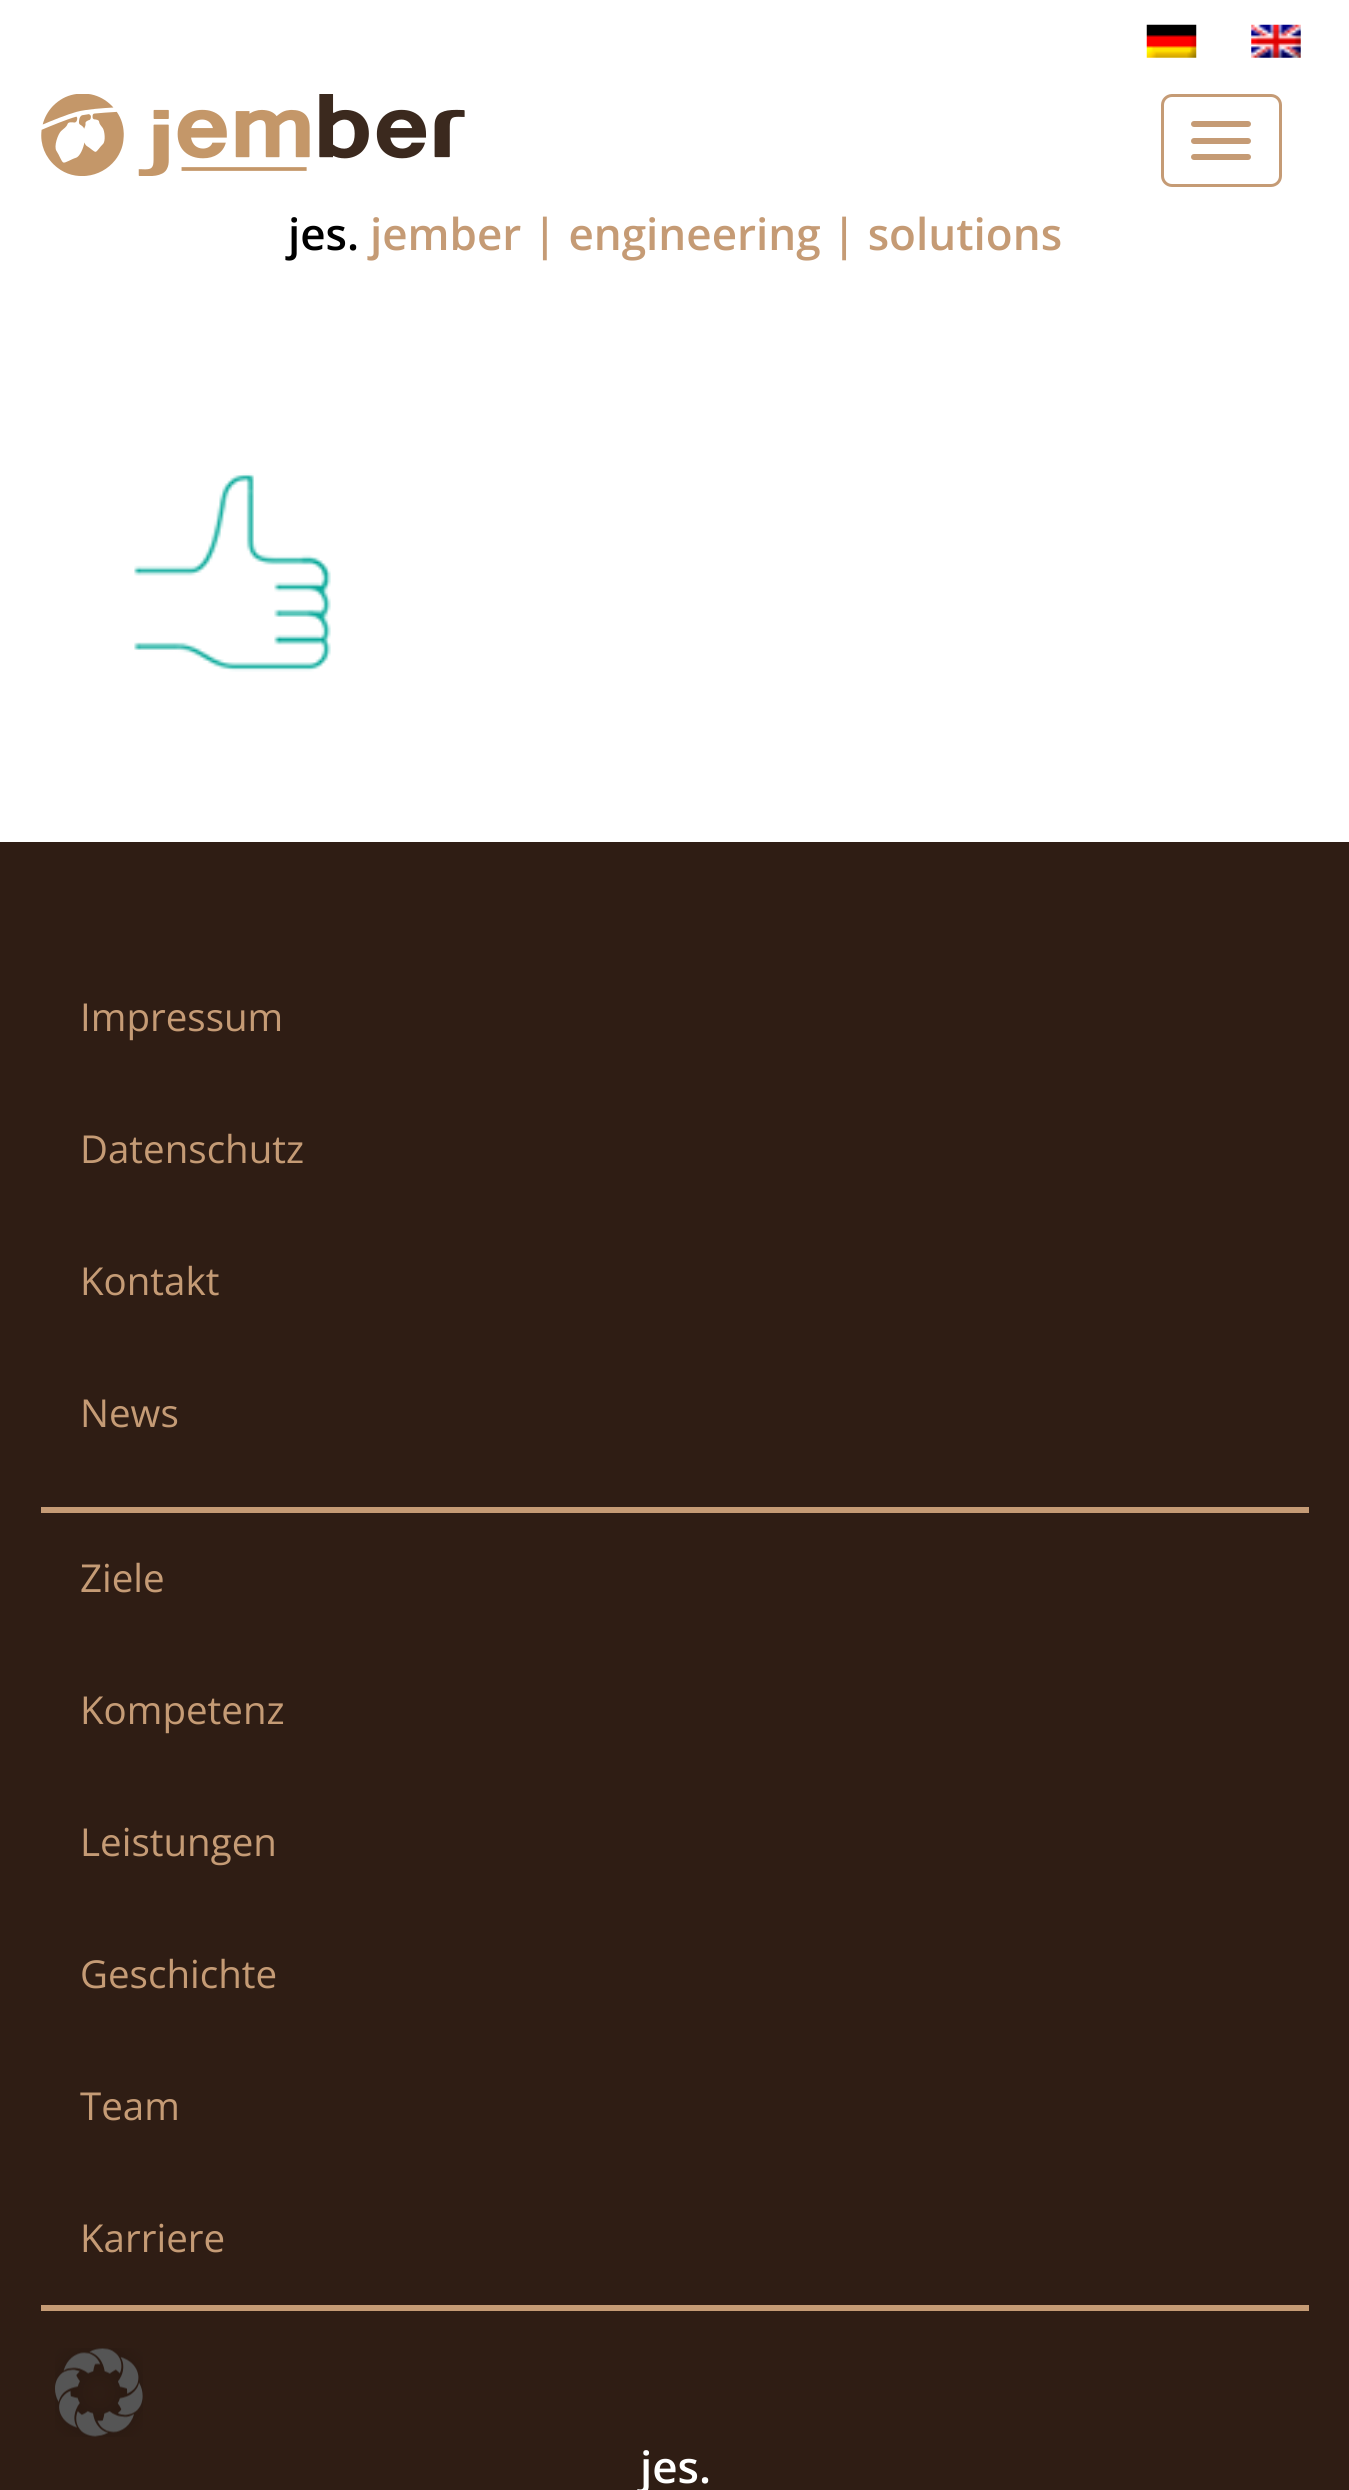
#include <cairo.h>
#include <math.h>
#include <stddef.h>


static void set_color(cairo_t *cr, unsigned color) {
    cairo_set_source_rgb(cr, (color >> 16) / 255.0, (color >> 8 & 255) / 255.0, (color & 255) / 255.0);
}

static void draw_text(cairo_t *cr, double x, double y, const char *s, const char *family, double size, int italic, int bold, unsigned color) {
    cairo_select_font_face(cr, family, italic ? CAIRO_FONT_SLANT_ITALIC : CAIRO_FONT_SLANT_NORMAL,
        bold ? CAIRO_FONT_WEIGHT_BOLD : CAIRO_FONT_WEIGHT_NORMAL);
    cairo_set_font_size(cr, size);
    set_color(cr, color);
    cairo_move_to(cr, x, y);
    cairo_show_text(cr, s);
}

static void fill_rect(cairo_t *cr, double x, double y, double w, double h, unsigned color) {
    set_color(cr, color);
    cairo_rectangle(cr, x, y, w, h);
    cairo_fill(cr);
}

static void rounded_rect(cairo_t *cr, double x, double y, double w, double h, double r) {
    cairo_new_sub_path(cr);
    cairo_arc(cr, x + w - r, y + h - r, r, 0, M_PI / 2);
    cairo_arc(cr, x + r, y + h - r, r, M_PI / 2, M_PI);
    cairo_arc(cr, x + r, y + r, r, M_PI, 1.5 * M_PI);
    cairo_arc(cr, x + w - r, y + r, r, 1.5 * M_PI, 2 * M_PI);
    cairo_close_path(cr);
}

static void draw_image(cairo_t *cr, const char *path, double x, double y, double w, double h) {
    cairo_surface_t *image = cairo_image_surface_create_from_png(path);
    cairo_save(cr);
    cairo_set_source_surface(cr, image, x, y);
    cairo_rectangle(cr, x, y, w, h);
    cairo_fill(cr);
    cairo_restore(cr);
    cairo_surface_destroy(image);
}

int main(void) {
    cairo_surface_t *surface = cairo_image_surface_create(CAIRO_FORMAT_RGB24, 1349, 2490);
    cairo_t *cr = cairo_create(surface);
    cairo_font_options_t *options = cairo_font_options_create();
    cairo_font_options_set_hint_metrics(options, CAIRO_HINT_METRICS_OFF);
    cairo_font_options_set_hint_style(options, CAIRO_HINT_STYLE_NONE);
    cairo_set_font_options(cr, options);
    cairo_set_miter_limit(cr, 4);
    set_color(cr, 0xFFFFFF);
    cairo_paint(cr);
    draw_image(cr, "assets/img1.png", 1146, 24, 51, 34);
    draw_image(cr, "assets/img2.png", 1251, 24, 50, 34);
    draw_image(cr, "assets/img3.png", 41, 94, 424, 82);
    rounded_rect(cr, 1162.5, 95.5, 118, 90, 9.5);
    set_color(cr, 0xC59B75);
    cairo_set_line_width(cr, 3);
    cairo_stroke(cr);
    rounded_rect(cr, 1191, 121, 60, 6, 3);
    cairo_fill(cr);
    rounded_rect(cr, 1191, 138, 60, 6, 3);
    cairo_fill(cr);
    rounded_rect(cr, 1191, 154, 60, 6, 3);
    cairo_fill(cr);
    draw_text(cr, 288, 250, "jes.", "Open Sans SemiBold", 44, 0, 0, 0x000000);
    draw_text(cr, 370, 250, "jember | engineering | solutions", "Open Sans SemiBold", 44, 0, 0, 0xC59B75);
    draw_image(cr, "assets/img4.png", 134, 473, 197, 199);
    fill_rect(cr, 0, 842, 1349, 1648, 0x2F1D14);
    draw_text(cr, 80, 1031, "Impressum", "Open Sans", 38.5, 0, 0, 0xC59B75);
    draw_text(cr, 80, 1163, "Datenschutz", "Open Sans", 38.5, 0, 0, 0xC59B75);
    draw_text(cr, 80, 1295, "Kontakt", "Open Sans", 38.5, 0, 0, 0xC59B75);
    draw_text(cr, 80, 1427, "News", "Open Sans", 38.5, 0, 0, 0xC59B75);
    fill_rect(cr, 41, 1507, 1268, 6, 0xC59B75);
    fill_rect(cr, 41, 2305, 1268, 6, 0xC59B75);
    draw_text(cr, 80, 1592, "Ziele", "Open Sans", 38.5, 0, 0, 0xC59B75);
    draw_text(cr, 80, 1724, "Kompetenz", "Open Sans", 38.5, 0, 0, 0xC59B75);
    draw_text(cr, 80, 1856, "Leistungen", "Open Sans", 38.5, 0, 0, 0xC59B75);
    draw_text(cr, 80, 1988, "Geschichte", "Open Sans", 38.5, 0, 0, 0xC59B75);
    draw_text(cr, 80, 2120, "Team", "Open Sans", 38.5, 0, 0, 0xC59B75);
    draw_text(cr, 80, 2252, "Karriere", "Open Sans", 38.5, 0, 0, 0xC59B75);
    draw_text(cr, 640, 2483, "jes.", "Open Sans SemiBold", 44, 0, 0, 0xFFFFFF);
    draw_image(cr, "assets/img5.png", 55, 2348, 88, 89);
    cairo_surface_write_to_png(surface, "output.png");
    cairo_font_options_destroy(options);
    cairo_destroy(cr);
    cairo_surface_destroy(surface);
    return 0;
}
